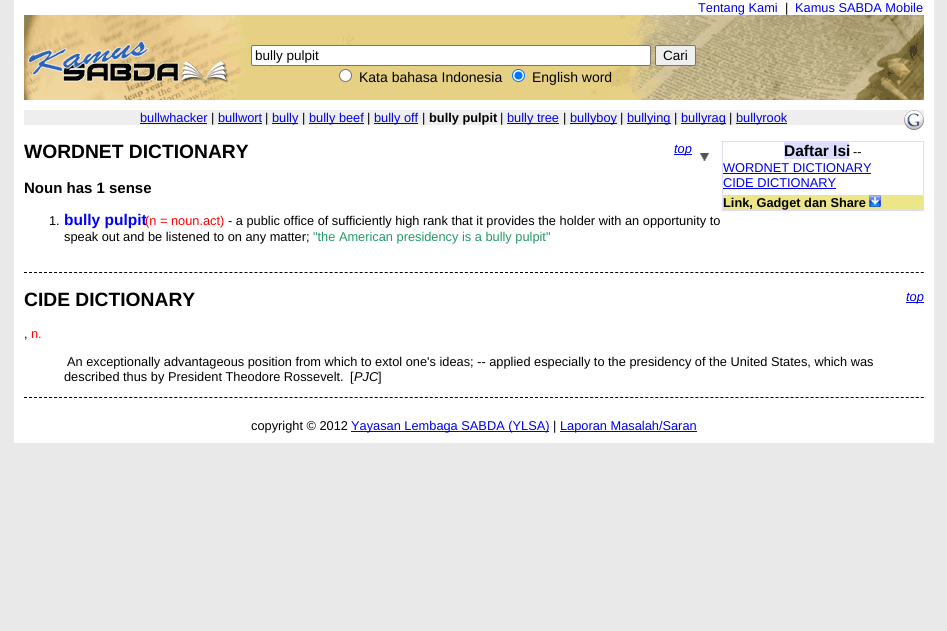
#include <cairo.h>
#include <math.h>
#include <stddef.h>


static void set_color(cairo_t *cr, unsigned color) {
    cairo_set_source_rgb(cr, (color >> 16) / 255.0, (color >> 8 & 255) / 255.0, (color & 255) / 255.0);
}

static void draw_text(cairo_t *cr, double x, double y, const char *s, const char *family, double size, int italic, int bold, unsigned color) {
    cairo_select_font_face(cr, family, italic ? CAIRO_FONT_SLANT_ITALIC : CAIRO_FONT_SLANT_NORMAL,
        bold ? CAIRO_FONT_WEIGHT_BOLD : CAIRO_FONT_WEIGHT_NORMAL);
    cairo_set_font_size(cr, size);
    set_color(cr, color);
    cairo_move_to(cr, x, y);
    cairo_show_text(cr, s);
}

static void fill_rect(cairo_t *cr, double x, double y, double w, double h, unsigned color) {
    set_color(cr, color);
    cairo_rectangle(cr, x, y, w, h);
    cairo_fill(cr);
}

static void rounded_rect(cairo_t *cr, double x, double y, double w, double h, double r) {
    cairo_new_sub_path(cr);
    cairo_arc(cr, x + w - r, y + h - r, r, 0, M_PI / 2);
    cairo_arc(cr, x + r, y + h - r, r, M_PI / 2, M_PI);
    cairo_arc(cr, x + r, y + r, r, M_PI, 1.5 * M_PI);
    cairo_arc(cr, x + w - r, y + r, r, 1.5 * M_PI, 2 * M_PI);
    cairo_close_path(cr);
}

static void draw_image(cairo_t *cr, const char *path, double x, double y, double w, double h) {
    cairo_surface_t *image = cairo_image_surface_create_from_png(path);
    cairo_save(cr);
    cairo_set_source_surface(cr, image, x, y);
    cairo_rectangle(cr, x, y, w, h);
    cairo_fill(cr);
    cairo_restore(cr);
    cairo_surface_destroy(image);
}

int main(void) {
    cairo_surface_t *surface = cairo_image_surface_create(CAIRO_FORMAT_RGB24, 947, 631);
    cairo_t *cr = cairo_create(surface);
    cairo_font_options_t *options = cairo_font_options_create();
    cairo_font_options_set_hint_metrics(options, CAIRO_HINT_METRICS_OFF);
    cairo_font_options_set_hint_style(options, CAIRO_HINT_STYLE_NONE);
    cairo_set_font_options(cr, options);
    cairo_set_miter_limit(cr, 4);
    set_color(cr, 0xE9E9E9);
    cairo_paint(cr);
    fill_rect(cr, 14, 0, 920, 443, 0xFFFFFF);
    draw_text(cr, 698, 12, "Tentang Kami", "Liberation Sans", 12.8, 0, 0, 0x0000EE);
    draw_text(cr, 785, 12, "|", "Liberation Sans", 12.8, 0, 0, 0x000000);
    draw_text(cr, 795, 12, "Kamus SABDA Mobile", "Liberation Sans", 12.8, 0, 0, 0x0000EE);
    draw_image(cr, "assets/img1.png", 24, 15, 900, 85);
    set_color(cr, 0xFFFFFF);
    rounded_rect(cr, 251.5, 45.5, 399, 20, 1.5);
    cairo_fill_preserve(cr);
    set_color(cr, 0x767676);
    cairo_set_line_width(cr, 1);
    cairo_stroke(cr);
    draw_text(cr, 255, 60, "bully pulpit", "Liberation Sans", 13.5, 0, 0, 0x000000);
    set_color(cr, 0xEFEFEF);
    rounded_rect(cr, 655.5, 45.5, 40, 20, 1.5);
    cairo_fill_preserve(cr);
    set_color(cr, 0x767676);
    cairo_stroke(cr);
    draw_text(cr, 663, 60, "Cari", "Liberation Sans", 13.5, 0, 0, 0x000000);
    set_color(cr, 0xFFFFFF);
    cairo_new_path(cr);
    cairo_arc(cr, 345.5, 75.5, 6, 0, 2 * M_PI);
    cairo_fill_preserve(cr);
    set_color(cr, 0x767676);
    cairo_stroke(cr);
    draw_text(cr, 359, 82, "Kata bahasa Indonesia", "Liberation Sans", 14, 0, 0, 0x000000);
    set_color(cr, 0xFFFFFF);
    cairo_new_path(cr);
    cairo_arc(cr, 518.5, 75.5, 6, 0, 2 * M_PI);
    cairo_fill_preserve(cr);
    set_color(cr, 0x0075FF);
    cairo_stroke(cr);
    cairo_arc(cr, 518.5, 75.5, 4, 0, 2 * M_PI);
    cairo_fill(cr);
    draw_text(cr, 532, 82, "English word", "Liberation Sans", 14, 0, 0, 0x000000);
    fill_rect(cr, 24, 110, 900, 15, 0xEEEEEE);
    draw_text(cr, 140, 122, "bullwhacker", "Liberation Sans", 12.8, 0, 0, 0x0000EE);
    fill_rect(cr, 140, 123, 67, 1, 0x0000EE);
    draw_text(cr, 211, 122, "|", "Liberation Sans", 12.8, 0, 0, 0x000000);
    draw_text(cr, 218, 122, "bullwort", "Liberation Sans", 12.8, 0, 0, 0x0000EE);
    fill_rect(cr, 218, 123, 44, 1, 0x0000EE);
    draw_text(cr, 265, 122, "|", "Liberation Sans", 12.8, 0, 0, 0x000000);
    fill_rect(cr, 272, 123, 26, 1, 0x0000EE);
    draw_text(cr, 272, 122, "bully", "Liberation Sans", 12.8, 0, 0, 0x0000EE);
    draw_text(cr, 302, 122, "|", "Liberation Sans", 12.8, 0, 0, 0x000000);
    fill_rect(cr, 309, 123, 55, 1, 0x0000EE);
    draw_text(cr, 309, 122, "bully beef", "Liberation Sans", 12.8, 0, 0, 0x0000EE);
    draw_text(cr, 367, 122, "|", "Liberation Sans", 12.8, 0, 0, 0x000000);
    fill_rect(cr, 374, 123, 44, 1, 0x0000EE);
    draw_text(cr, 374, 122, "bully off", "Liberation Sans", 12.8, 0, 0, 0x0000EE);
    draw_text(cr, 422, 122, "|", "Liberation Sans", 12.8, 0, 0, 0x000000);
    draw_text(cr, 429, 122, "bully pulpit", "Liberation Sans", 12.8, 0, 1, 0x000000);
    draw_text(cr, 500, 122, "|", "Liberation Sans", 12.8, 0, 0, 0x000000);
    fill_rect(cr, 507, 123, 52, 1, 0x0000EE);
    draw_text(cr, 507, 122, "bully tree", "Liberation Sans", 12.8, 0, 0, 0x0000EE);
    draw_text(cr, 563, 122, "|", "Liberation Sans", 12.8, 0, 0, 0x000000);
    fill_rect(cr, 570, 123, 47, 1, 0x0000EE);
    draw_text(cr, 570, 122, "bullyboy", "Liberation Sans", 12.8, 0, 0, 0x0000EE);
    draw_text(cr, 620, 122, "|", "Liberation Sans", 12.8, 0, 0, 0x000000);
    fill_rect(cr, 627, 123, 44, 1, 0x0000EE);
    draw_text(cr, 627, 122, "bullying", "Liberation Sans", 12.8, 0, 0, 0x0000EE);
    draw_text(cr, 674, 122, "|", "Liberation Sans", 12.8, 0, 0, 0x000000);
    fill_rect(cr, 681, 123, 45, 1, 0x0000EE);
    draw_text(cr, 681, 122, "bullyrag", "Liberation Sans", 12.8, 0, 0, 0x0000EE);
    draw_text(cr, 729, 122, "|", "Liberation Sans", 12.8, 0, 0, 0x000000);
    fill_rect(cr, 736, 123, 51, 1, 0x0000EE);
    draw_text(cr, 736, 122, "bullyrook", "Liberation Sans", 12.8, 0, 0, 0x0000EE);
    draw_image(cr, "assets/img2.png", 904, 110, 20, 20);
    cairo_new_path(cr);
    cairo_move_to(cr, 24, 272.5);
    cairo_line_to(cr, 924, 272.5);
    set_color(cr, 0x000000);
    cairo_set_dash(cr, (double[]){3, 2.01}, 2, 0);
    cairo_stroke(cr);
    draw_text(cr, 24, 158, "WORDNET DICTIONARY", "Liberation Sans", 19.25, 0, 1, 0x000000);
    fill_rect(cr, 674, 154, 18, 1, 0x0000EE);
    draw_text(cr, 674, 153, "top", "Liberation Sans", 12.8, 1, 0, 0x0000EE);
    draw_text(cr, 24, 193, "Noun has 1 sense", "Liberation Sans", 15, 0, 1, 0x000000);
    draw_text(cr, 49, 225, "1.", "Liberation Sans", 12.8, 0, 0, 0x000000);
    draw_text(cr, 64, 225, "bully pulpit", "Liberation Sans", 15.5, 0, 1, 0x0000FF);
    draw_text(cr, 145, 225, "(n = noun.act)", "Liberation Sans", 12.8, 0, 0, 0xFF0000);
    draw_text(cr, 228, 225, "- a public office of sufficiently high rank that it provides the holder with an opportunity to", "Liberation Sans", 12.8, 0, 0, 0x000000);
    draw_text(cr, 64, 241, "speak out and be listened to on any matter;", "Liberation Sans", 12.8, 0, 0, 0x000000);
    draw_text(cr, 313, 241, "\"the American presidency is a bully pulpit\"", "Liberation Sans", 12.8, 0, 0, 0x229966);
    cairo_new_path(cr);
    cairo_move_to(cr, 24, 397.5);
    cairo_line_to(cr, 924, 397.5);
    set_color(cr, 0x000000);
    cairo_stroke(cr);
    draw_text(cr, 24, 306, "CIDE DICTIONARY", "Liberation Sans", 19.25, 0, 1, 0x000000);
    fill_rect(cr, 906, 302, 18, 1, 0x0000EE);
    draw_text(cr, 906, 301, "top", "Liberation Sans", 12.8, 1, 0, 0x0000EE);
    draw_text(cr, 24, 338, ",", "Liberation Sans", 12.8, 0, 0, 0x000000);
    draw_text(cr, 31, 338, "n.", "Liberation Sans", 12.8, 0, 0, 0xFF0000);
    draw_text(cr, 67, 366, "An exceptionally advantageous position from which to extol one's ideas; -- applied especially to the presidency of the United States, which was", "Liberation Sans", 12.8, 0, 0, 0x000000);
    draw_text(cr, 64, 381, "described thus by President Theodore Rossevelt.", "Liberation Sans", 12.8, 0, 0, 0x000000);
    draw_text(cr, 350, 381, "[", "Liberation Sans", 12.8, 0, 0, 0x000000);
    draw_text(cr, 354, 381, "PJC", "Liberation Sans", 12.8, 1, 0, 0x000000);
    draw_text(cr, 378, 381, "]", "Liberation Sans", 12.8, 0, 0, 0x000000);
    draw_image(cr, "assets/img3.png", 700, 153, 9, 8);
    cairo_rectangle(cr, 722.5, 141.5, 201, 69);
    set_color(cr, 0xDDDDFF);
    cairo_set_dash(cr, NULL, 0, 0);
    cairo_stroke(cr);
    fill_rect(cr, 784, 142, 65, 17, 0xDDDDFF);
    draw_text(cr, 784, 156, "Daftar Isi", "Liberation Sans", 15.5, 0, 1, 0x000000);
    draw_text(cr, 853, 156, "--", "Liberation Sans", 12.8, 0, 0, 0x000000);
    draw_text(cr, 723, 172, "WORDNET DICTIONARY", "Liberation Sans", 12.8, 0, 0, 0x0000EE);
    fill_rect(cr, 723, 173, 148, 1, 0x0000EE);
    draw_text(cr, 723, 187, "CIDE DICTIONARY", "Liberation Sans", 12.8, 0, 0, 0x0000EE);
    fill_rect(cr, 723, 188, 113, 1, 0x0000EE);
    fill_rect(cr, 723, 195, 200, 15, 0xEDE689);
    draw_text(cr, 723, 207, "Link, Gadget dan Share", "Liberation Sans", 12.8, 0, 1, 0x000000);
    draw_image(cr, "assets/img4.png", 869, 195, 12, 12);
    draw_text(cr, 251, 430, "copyright © 2012", "Liberation Sans", 12.8, 0, 0, 0x000000);
    fill_rect(cr, 351, 431, 198, 1, 0x0000EE);
    draw_text(cr, 351, 430, "Yayasan Lembaga SABDA (YLSA)", "Liberation Sans", 12.8, 0, 0, 0x0000EE);
    draw_text(cr, 553, 430, "|", "Liberation Sans", 12.8, 0, 0, 0x000000);
    fill_rect(cr, 560, 431, 137, 1, 0x0000EE);
    draw_text(cr, 560, 430, "Laporan Masalah/Saran", "Liberation Sans", 12.8, 0, 0, 0x0000EE);
    cairo_surface_write_to_png(surface, "output.png");
    cairo_font_options_destroy(options);
    cairo_destroy(cr);
    cairo_surface_destroy(surface);
    return 0;
}
